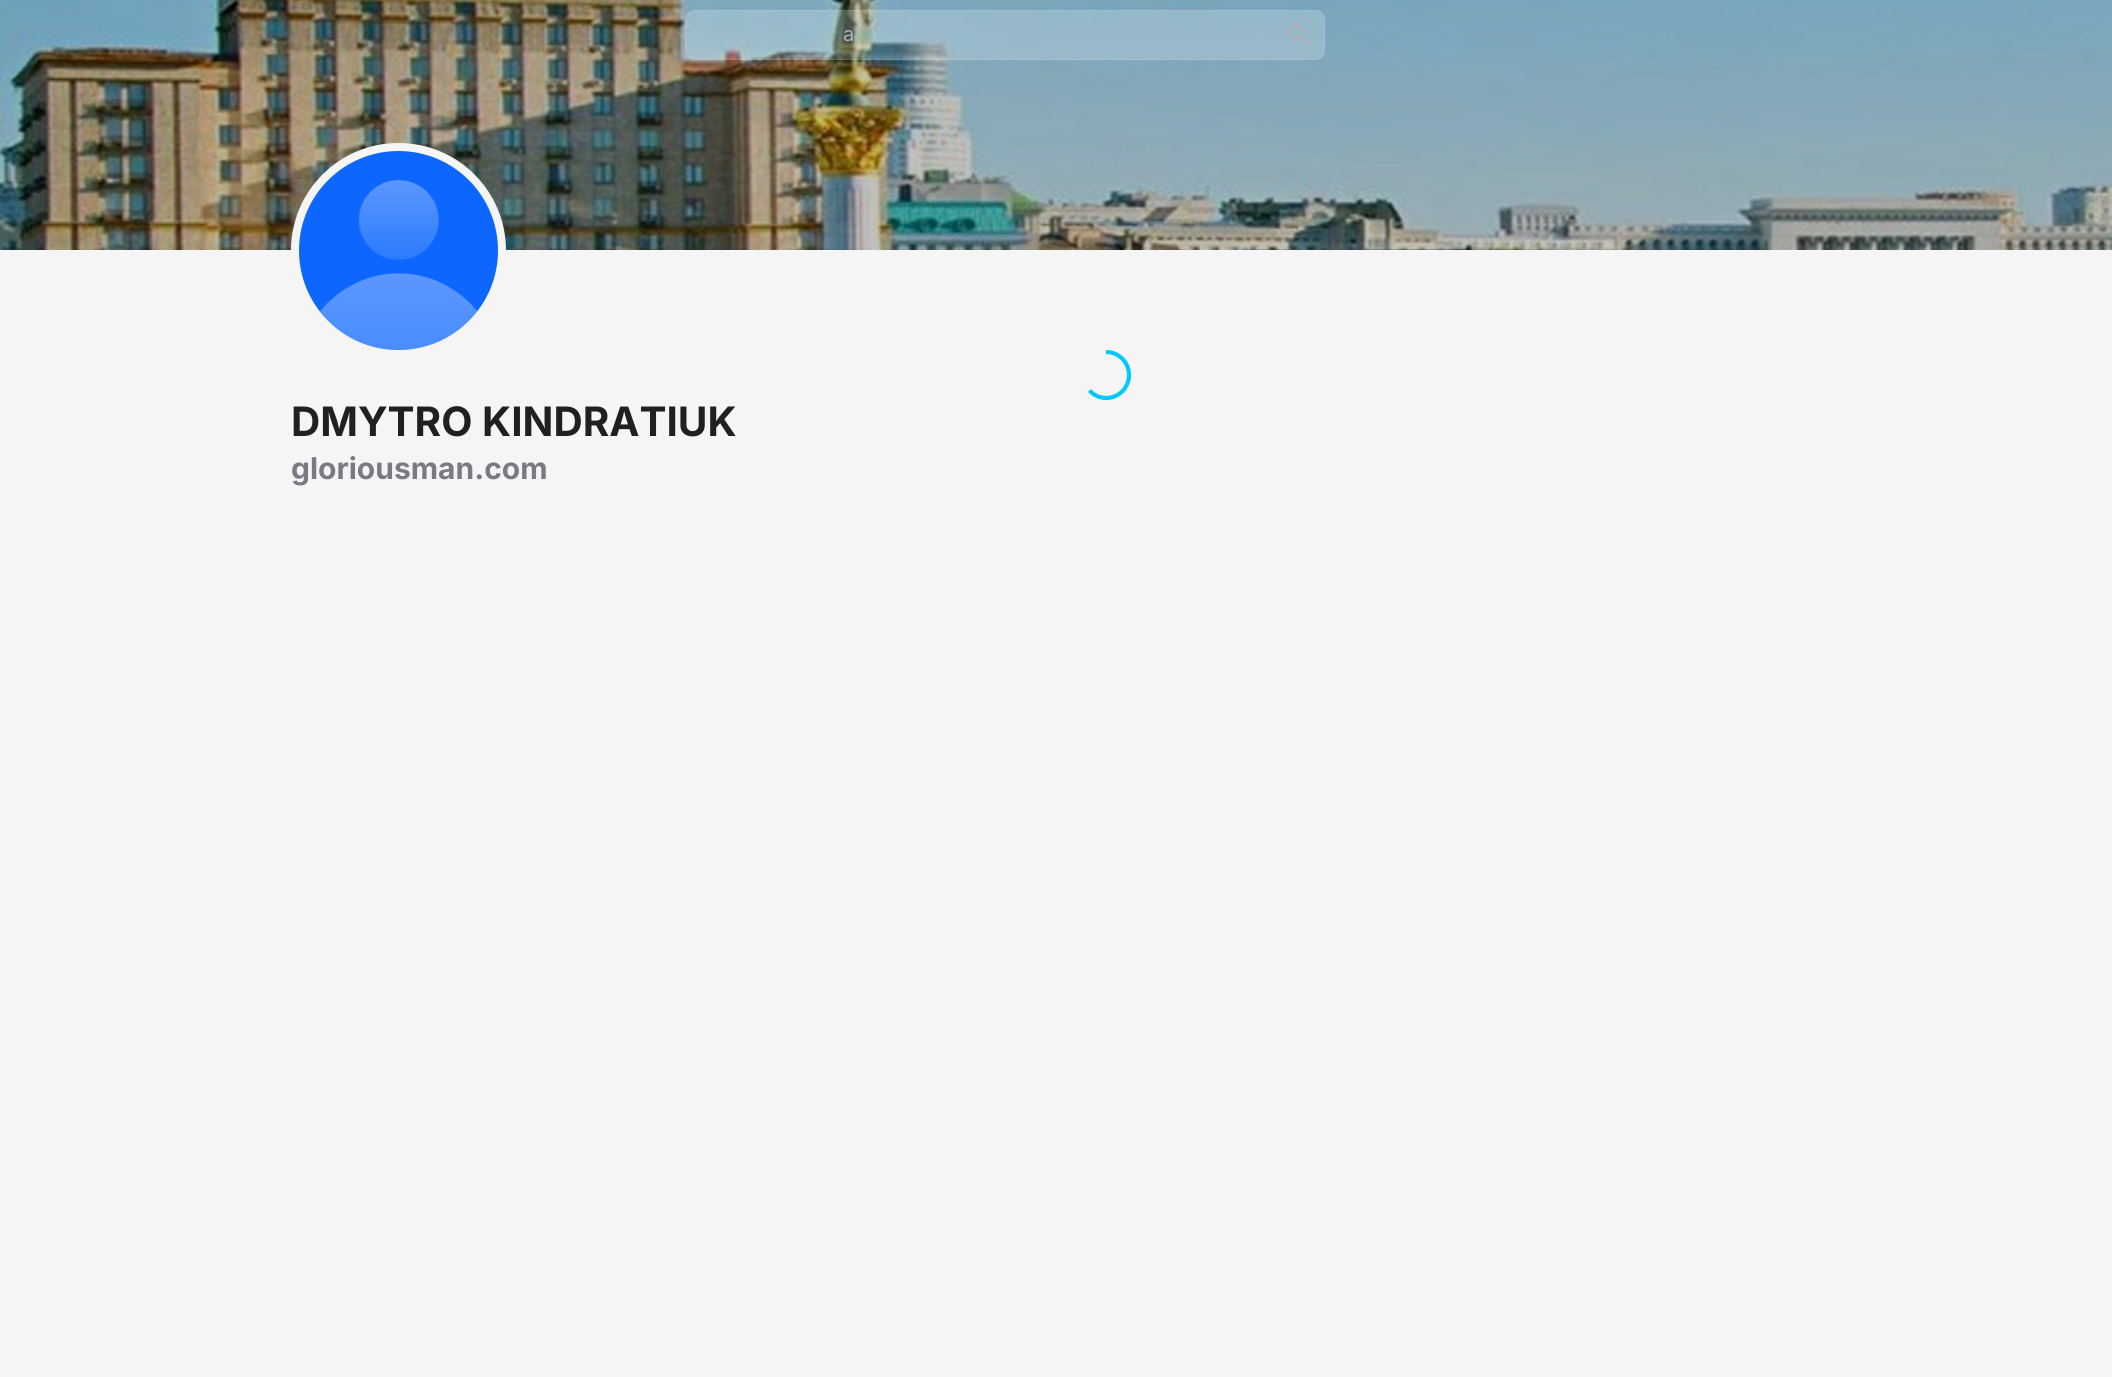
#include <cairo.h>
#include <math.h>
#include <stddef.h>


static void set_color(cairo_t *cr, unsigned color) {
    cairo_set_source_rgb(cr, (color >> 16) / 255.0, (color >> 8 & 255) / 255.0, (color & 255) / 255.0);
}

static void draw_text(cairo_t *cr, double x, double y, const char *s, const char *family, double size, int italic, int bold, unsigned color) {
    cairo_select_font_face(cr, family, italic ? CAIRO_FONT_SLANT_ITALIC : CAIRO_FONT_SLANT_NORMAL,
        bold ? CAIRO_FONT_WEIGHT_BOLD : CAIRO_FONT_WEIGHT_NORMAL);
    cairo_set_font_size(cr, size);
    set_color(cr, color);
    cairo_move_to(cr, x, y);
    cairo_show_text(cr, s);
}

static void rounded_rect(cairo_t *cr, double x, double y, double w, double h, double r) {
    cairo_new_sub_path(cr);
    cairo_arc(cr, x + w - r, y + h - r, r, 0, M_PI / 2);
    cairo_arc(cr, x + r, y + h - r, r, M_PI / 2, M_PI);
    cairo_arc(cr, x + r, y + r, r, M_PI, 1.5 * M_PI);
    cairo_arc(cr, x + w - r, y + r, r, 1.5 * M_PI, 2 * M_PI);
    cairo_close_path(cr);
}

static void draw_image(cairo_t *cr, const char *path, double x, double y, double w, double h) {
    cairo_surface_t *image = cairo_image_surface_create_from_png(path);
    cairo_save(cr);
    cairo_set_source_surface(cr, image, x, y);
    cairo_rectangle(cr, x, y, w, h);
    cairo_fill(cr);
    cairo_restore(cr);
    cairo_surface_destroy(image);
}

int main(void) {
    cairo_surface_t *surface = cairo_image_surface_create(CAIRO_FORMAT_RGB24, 2112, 1377);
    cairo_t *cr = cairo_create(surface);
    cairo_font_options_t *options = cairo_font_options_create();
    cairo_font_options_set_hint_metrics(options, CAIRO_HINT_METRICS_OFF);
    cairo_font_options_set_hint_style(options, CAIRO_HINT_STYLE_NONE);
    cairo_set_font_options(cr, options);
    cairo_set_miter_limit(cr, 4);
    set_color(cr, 0xF5F5F5);
    cairo_paint(cr);
    draw_image(cr, "assets/img1.png", 0, 0, 2112, 250);
    cairo_set_source_rgba(cr, 1, 1, 1, 0.2);
    rounded_rect(cr, 685, 10, 640, 50, 10);
    cairo_fill(cr);
    rounded_rect(cr, 685.5, 10.5, 639, 49, 9.5);
    cairo_set_source_rgba(cr, 1, 1, 1, 0.1);
    cairo_set_line_width(cr, 1);
    cairo_stroke(cr);
    draw_text(cr, 843, 41, "a", "Inter", 20, 0, 0, 0xAFAFB6);
    draw_image(cr, "assets/img2.png", 1287, 23, 22, 23);
    cairo_new_path(cr);
    cairo_move_to(cr, 1106, 352);
    cairo_curve_to(cr, 1119, 352, 1129, 362.5, 1129, 375);
    cairo_curve_to(cr, 1129, 387.5, 1119, 398, 1106, 398);
    cairo_curve_to(cr, 1099.5, 398, 1093.5, 395, 1089.5, 390.5);
    set_color(cr, 0x00C9FF);
    cairo_set_line_width(cr, 4.1);
    cairo_stroke(cr);
    set_color(cr, 0x0D67FE);
    cairo_arc(cr, 398.5, 250.5, 103.5, 0, 2 * M_PI);
    cairo_fill_preserve(cr);
    set_color(cr, 0xF5F5F5);
    cairo_set_line_width(cr, 8);
    cairo_stroke(cr);
    draw_image(cr, "assets/img3.png", 320, 180, 157, 170);
    draw_text(cr, 291, 436, "DMYTRO KINDRATIUK", "Inter", 40.5, 0, 1, 0x202020);
    draw_text(cr, 291, 479, "gloriousman.com", "Inter", 30, 0, 1, 0x7A7A85);
    cairo_surface_write_to_png(surface, "output.png");
    cairo_font_options_destroy(options);
    cairo_destroy(cr);
    cairo_surface_destroy(surface);
    return 0;
}
